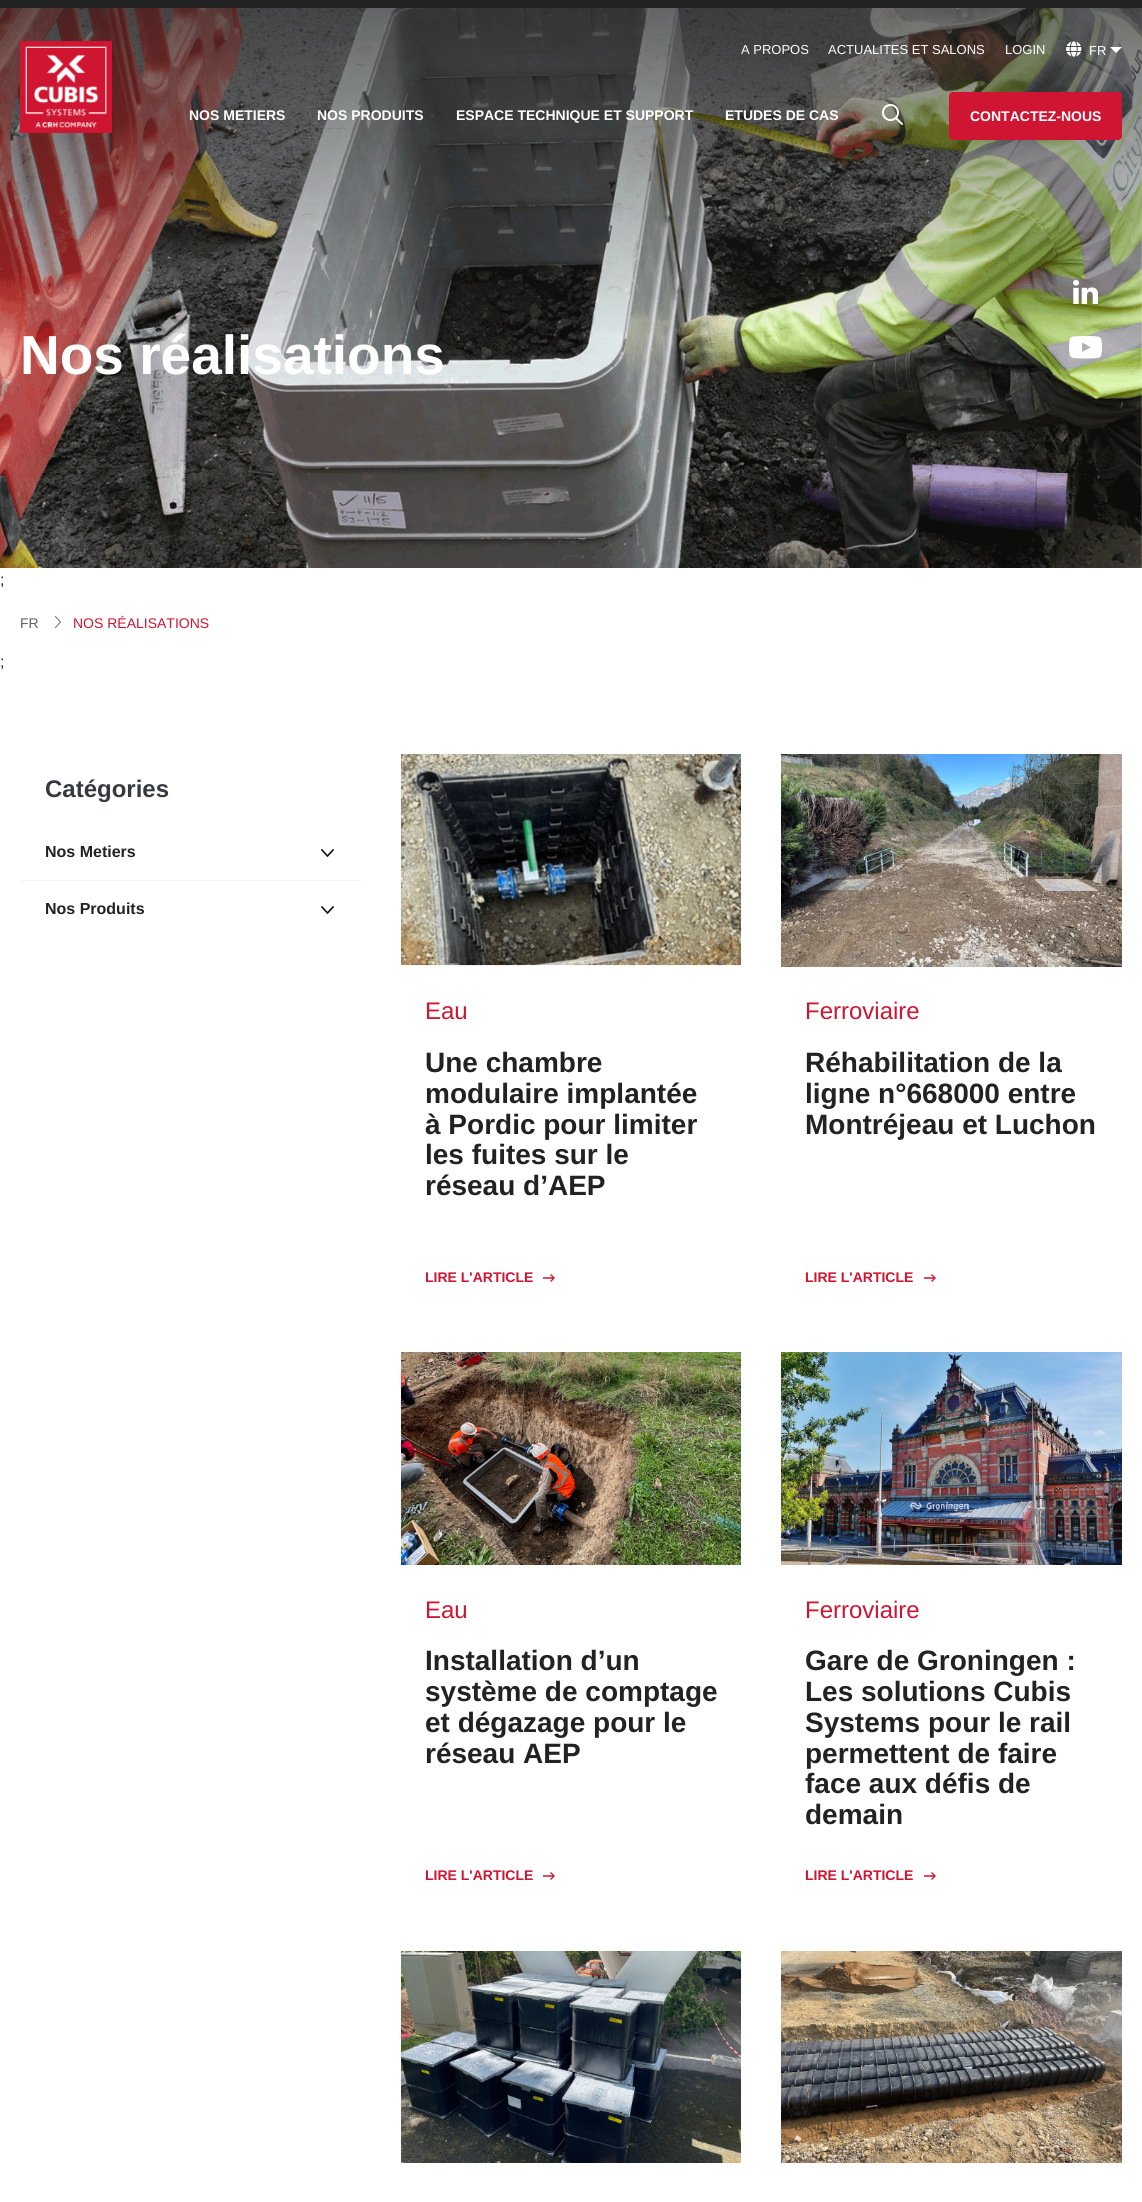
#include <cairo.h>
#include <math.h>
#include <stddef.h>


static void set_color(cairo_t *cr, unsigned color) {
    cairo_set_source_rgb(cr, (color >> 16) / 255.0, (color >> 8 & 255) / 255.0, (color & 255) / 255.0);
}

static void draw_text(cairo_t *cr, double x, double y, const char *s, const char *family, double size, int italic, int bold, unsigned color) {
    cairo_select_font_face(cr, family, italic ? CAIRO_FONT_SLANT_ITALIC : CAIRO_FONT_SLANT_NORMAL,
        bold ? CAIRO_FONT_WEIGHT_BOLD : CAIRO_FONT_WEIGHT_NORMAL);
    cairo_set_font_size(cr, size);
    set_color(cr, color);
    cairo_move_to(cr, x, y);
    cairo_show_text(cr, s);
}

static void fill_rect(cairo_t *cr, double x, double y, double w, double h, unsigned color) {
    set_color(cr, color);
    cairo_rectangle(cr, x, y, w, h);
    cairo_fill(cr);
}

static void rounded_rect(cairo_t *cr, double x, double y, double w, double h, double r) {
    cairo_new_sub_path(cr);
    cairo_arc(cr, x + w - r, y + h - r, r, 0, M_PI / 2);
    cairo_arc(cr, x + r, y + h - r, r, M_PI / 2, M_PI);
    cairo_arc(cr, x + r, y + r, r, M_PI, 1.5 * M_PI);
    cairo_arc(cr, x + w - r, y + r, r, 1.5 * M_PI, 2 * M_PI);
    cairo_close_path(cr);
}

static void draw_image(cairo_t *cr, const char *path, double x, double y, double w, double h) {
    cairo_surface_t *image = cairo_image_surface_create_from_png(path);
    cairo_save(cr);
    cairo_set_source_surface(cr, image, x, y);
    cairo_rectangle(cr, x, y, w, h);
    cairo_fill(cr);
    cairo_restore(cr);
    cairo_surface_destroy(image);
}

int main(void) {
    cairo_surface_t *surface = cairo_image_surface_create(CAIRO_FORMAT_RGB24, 1142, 2202);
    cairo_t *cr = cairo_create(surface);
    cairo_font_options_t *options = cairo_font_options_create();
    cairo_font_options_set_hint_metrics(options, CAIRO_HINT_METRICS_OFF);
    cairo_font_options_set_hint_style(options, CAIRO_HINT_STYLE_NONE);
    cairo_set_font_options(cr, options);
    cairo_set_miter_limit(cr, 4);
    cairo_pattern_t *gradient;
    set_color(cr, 0xFFFFFF);
    cairo_paint(cr);
    fill_rect(cr, 0, 0, 1142, 8, 0x222222);
    draw_image(cr, "assets/img4.png", 0, 8, 1142, 560);
    gradient = cairo_pattern_create_linear(571, 8, 571, 344);
    cairo_pattern_add_color_stop_rgba(gradient, 0, 0.133, 0.133, 0.133, 0.66);
    cairo_pattern_add_color_stop_rgba(gradient, 1, 0.133, 0.133, 0.133, 0);
    cairo_set_source(cr, gradient);
    cairo_pattern_destroy(gradient);
    cairo_rectangle(cr, 0, 8, 1142, 325);
    cairo_fill(cr);
    draw_image(cr, "assets/img1.png", 20, 41, 92, 92);
    draw_text(cr, 741, 54, "A PROPOS", "Liberation Sans", 13, 0, 0, 0xFEFEFE);
    draw_text(cr, 828, 54, "ACTUALITES ET SALONS", "Liberation Sans", 13, 0, 0, 0xFEFEFE);
    draw_text(cr, 1005, 54, "LOGIN", "Liberation Sans", 13, 0, 0, 0xFEFEFE);
    draw_image(cr, "assets/img2.png", 1066, 41, 16, 16);
    draw_text(cr, 1089, 55, "FR", "Liberation Sans", 13, 0, 0, 0xFEFEFE);
    set_color(cr, 0xFFFFFF);
    cairo_new_path(cr);
    cairo_move_to(cr, 1110, 47);
    cairo_line_to(cr, 1122, 47);
    cairo_line_to(cr, 1116, 53);
    cairo_close_path(cr);
    cairo_fill(cr);
    draw_text(cr, 189, 120, "NOS METIERS", "Liberation Sans", 14, 0, 1, 0xFEFEFE);
    draw_text(cr, 317, 120, "NOS PRODUITS", "Liberation Sans", 14, 0, 1, 0xFEFEFE);
    draw_text(cr, 456, 120, "ESPACE TECHNIQUE ET SUPPORT", "Liberation Sans", 14, 0, 1, 0xFEFEFE);
    draw_text(cr, 725, 120, "ETUDES DE CAS", "Liberation Sans", 14, 0, 1, 0xFEFEFE);
    draw_image(cr, "assets/img3.png", 882, 104, 21, 21);
    set_color(cr, 0xD01532);
    rounded_rect(cr, 949, 92, 173, 48, 4);
    cairo_fill(cr);
    draw_text(cr, 970, 121, "CONTACTEZ-NOUS", "Liberation Sans", 14, 0, 1, 0xFEFEFE);
    draw_text(cr, 20, 374, "Nos réalisations", "Liberation Sans", 55, 0, 1, 0xFEFEFE);
    draw_image(cr, "assets/img5.png", 1073, 280, 25, 24);
    draw_image(cr, "assets/img6.png", 1069, 336, 33, 23);
    draw_text(cr, 0, 585, ";", "Liberation Sans", 16, 0, 0, 0x222222);
    draw_text(cr, 20, 628, "FR", "Liberation Sans", 14, 0, 0, 0x606060);
    draw_image(cr, "assets/img7.png", 55, 616, 6, 12);
    draw_text(cr, 73, 628, "NOS RÉALISATIONS", "Liberation Sans", 14, 0, 0, 0xD01532);
    draw_text(cr, 0, 667, ";", "Liberation Sans", 16, 0, 0, 0x222222);
    draw_text(cr, 45, 797, "Catégories", "Liberation Sans", 24, 0, 1, 0x343A40);
    fill_rect(cr, 20, 880, 341, 1, 0xF4F4F4);
    draw_text(cr, 45, 857, "Nos Metiers", "Liberation Sans", 16, 0, 1, 0x222222);
    draw_image(cr, "assets/img8.png", 321, 849, 13, 8);
    draw_text(cr, 45, 914, "Nos Produits", "Liberation Sans", 16, 0, 1, 0x222222);
    draw_image(cr, "assets/img8.png", 321, 906, 13, 8);
    draw_image(cr, "assets/img9.png", 401, 754, 340, 212);
    draw_text(cr, 425, 1019, "Eau", "Liberation Sans", 24, 0, 0, 0xD01532);
    draw_text(cr, 425, 1072, "Une chambre", "Liberation Sans", 28, 0, 1, 0x222222);
    draw_text(cr, 425, 1103, "modulaire implantée", "Liberation Sans", 28, 0, 1, 0x222222);
    draw_text(cr, 425, 1134, "à Pordic pour limiter", "Liberation Sans", 28, 0, 1, 0x222222);
    draw_text(cr, 425, 1164, "les fuites sur le", "Liberation Sans", 28, 0, 1, 0x222222);
    draw_text(cr, 425, 1195, "réseau d’AEP", "Liberation Sans", 28, 0, 1, 0x222222);
    draw_text(cr, 425, 1282, "LIRE L'ARTICLE", "Liberation Sans", 14, 0, 1, 0xD01532);
    draw_image(cr, "assets/img10.png", 543, 1274, 12, 8);
    draw_image(cr, "assets/img11.png", 781, 754, 341, 213);
    draw_text(cr, 805, 1019, "Ferroviaire", "Liberation Sans", 24, 0, 0, 0xD01532);
    draw_text(cr, 805, 1072, "Réhabilitation de la", "Liberation Sans", 28, 0, 1, 0x222222);
    draw_text(cr, 805, 1103, "ligne n°668000 entre", "Liberation Sans", 28, 0, 1, 0x222222);
    draw_text(cr, 805, 1134, "Montréjeau et Luchon", "Liberation Sans", 28, 0, 1, 0x222222);
    draw_text(cr, 805, 1282, "LIRE L'ARTICLE", "Liberation Sans", 14, 0, 1, 0xD01532);
    draw_image(cr, "assets/img10.png", 924, 1274, 12, 8);
    draw_image(cr, "assets/img12.png", 401, 1352, 340, 213);
    draw_text(cr, 425, 1618, "Eau", "Liberation Sans", 24, 0, 0, 0xD01532);
    draw_text(cr, 425, 1670, "Installation d’un", "Liberation Sans", 28, 0, 1, 0x222222);
    draw_text(cr, 425, 1701, "système de comptage", "Liberation Sans", 28, 0, 1, 0x222222);
    draw_text(cr, 425, 1732, "et dégazage pour le", "Liberation Sans", 28, 0, 1, 0x222222);
    draw_text(cr, 425, 1763, "réseau AEP", "Liberation Sans", 28, 0, 1, 0x222222);
    draw_text(cr, 425, 1880, "LIRE L'ARTICLE", "Liberation Sans", 14, 0, 1, 0xD01532);
    draw_image(cr, "assets/img10.png", 543, 1872, 12, 8);
    draw_image(cr, "assets/img13.png", 781, 1352, 341, 213);
    draw_text(cr, 805, 1618, "Ferroviaire", "Liberation Sans", 24, 0, 0, 0xD01532);
    draw_text(cr, 805, 1670, "Gare de Groningen :", "Liberation Sans", 28, 0, 1, 0x222222);
    draw_text(cr, 805, 1701, "Les solutions Cubis", "Liberation Sans", 28, 0, 1, 0x222222);
    draw_text(cr, 805, 1732, "Systems pour le rail", "Liberation Sans", 28, 0, 1, 0x222222);
    draw_text(cr, 805, 1763, "permettent de faire", "Liberation Sans", 28, 0, 1, 0x222222);
    draw_text(cr, 805, 1793, "face aux défis de", "Liberation Sans", 28, 0, 1, 0x222222);
    draw_text(cr, 805, 1824, "demain", "Liberation Sans", 28, 0, 1, 0x222222);
    draw_text(cr, 805, 1880, "LIRE L'ARTICLE", "Liberation Sans", 14, 0, 1, 0xD01532);
    draw_image(cr, "assets/img10.png", 924, 1872, 12, 8);
    draw_image(cr, "assets/img14.png", 401, 1951, 340, 212);
    draw_image(cr, "assets/img15.png", 781, 1951, 341, 212);
    cairo_surface_write_to_png(surface, "output.png");
    cairo_font_options_destroy(options);
    cairo_destroy(cr);
    cairo_surface_destroy(surface);
    return 0;
}
